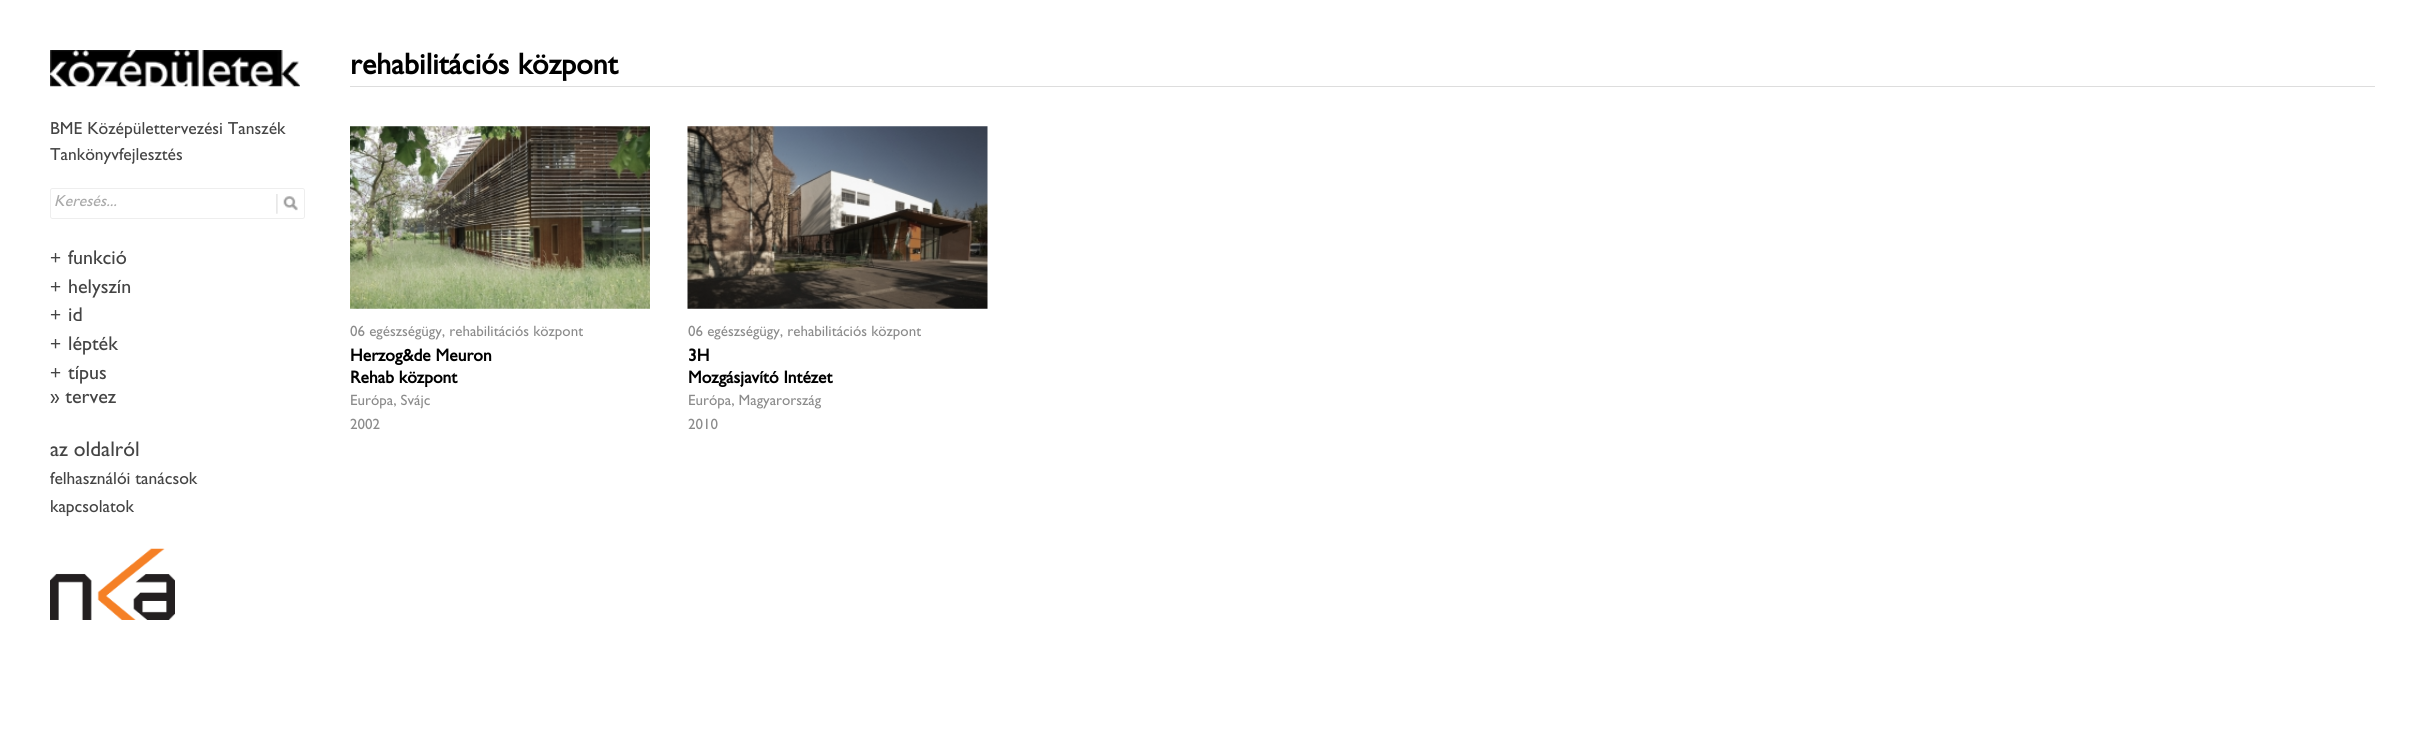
#include <cairo.h>
#include <math.h>
#include <stddef.h>


static void set_color(cairo_t *cr, unsigned color) {
    cairo_set_source_rgb(cr, (color >> 16) / 255.0, (color >> 8 & 255) / 255.0, (color & 255) / 255.0);
}

static void draw_text(cairo_t *cr, double x, double y, const char *s, const char *family, double size, int italic, int bold, unsigned color) {
    cairo_select_font_face(cr, family, italic ? CAIRO_FONT_SLANT_ITALIC : CAIRO_FONT_SLANT_NORMAL,
        bold ? CAIRO_FONT_WEIGHT_BOLD : CAIRO_FONT_WEIGHT_NORMAL);
    cairo_set_font_size(cr, size);
    set_color(cr, color);
    cairo_move_to(cr, x, y);
    cairo_show_text(cr, s);
}

static void fill_rect(cairo_t *cr, double x, double y, double w, double h, unsigned color) {
    set_color(cr, color);
    cairo_rectangle(cr, x, y, w, h);
    cairo_fill(cr);
}

static void rounded_rect(cairo_t *cr, double x, double y, double w, double h, double r) {
    cairo_new_sub_path(cr);
    cairo_arc(cr, x + w - r, y + h - r, r, 0, M_PI / 2);
    cairo_arc(cr, x + r, y + h - r, r, M_PI / 2, M_PI);
    cairo_arc(cr, x + r, y + r, r, M_PI, 1.5 * M_PI);
    cairo_arc(cr, x + w - r, y + r, r, 1.5 * M_PI, 2 * M_PI);
    cairo_close_path(cr);
}

static void draw_image(cairo_t *cr, const char *path, double x, double y, double w, double h) {
    cairo_surface_t *image = cairo_image_surface_create_from_png(path);
    cairo_save(cr);
    cairo_set_source_surface(cr, image, x, y);
    cairo_rectangle(cr, x, y, w, h);
    cairo_fill(cr);
    cairo_restore(cr);
    cairo_surface_destroy(image);
}

int main(void) {
    cairo_surface_t *surface = cairo_image_surface_create(CAIRO_FORMAT_RGB24, 2425, 754);
    cairo_t *cr = cairo_create(surface);
    cairo_font_options_t *options = cairo_font_options_create();
    cairo_font_options_set_hint_metrics(options, CAIRO_HINT_METRICS_OFF);
    cairo_font_options_set_hint_style(options, CAIRO_HINT_STYLE_NONE);
    cairo_set_font_options(cr, options);
    cairo_set_miter_limit(cr, 4);
    set_color(cr, 0xFFFFFF);
    cairo_paint(cr);
    draw_image(cr, "assets/img1.png", 50, 50, 250, 37);
    draw_text(cr, 50, 134, "BME Középülettervezési Tanszék", "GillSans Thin", 17.5, 0, 0, 0x444444);
    draw_text(cr, 50, 160, "Tankönyvfejlesztés", "GillSans Thin", 17.5, 0, 0, 0x444444);
    rounded_rect(cr, 50.5, 188.5, 254, 30, 2);
    set_color(cr, 0xEEEEEE);
    cairo_set_line_width(cr, 1);
    cairo_stroke(cr);
    draw_text(cr, 54, 206, "Keresés...", "GillSans Thin", 16, 1, 0, 0xAAAAAA);
    draw_image(cr, "assets/img2.png", 276, 194, 22, 20);
    draw_text(cr, 50, 264, "+", "Liberation Sans", 19, 0, 0, 0x444444);
    draw_text(cr, 68, 264, "funkció", "GillSans Thin", 20, 0, 0, 0x444444);
    draw_text(cr, 50, 293, "+", "Liberation Sans", 19, 0, 0, 0x444444);
    draw_text(cr, 68, 293, "helyszín", "GillSans Thin", 20, 0, 0, 0x444444);
    draw_text(cr, 50, 321, "+", "Liberation Sans", 19, 0, 0, 0x444444);
    draw_text(cr, 68, 321, "idő", "GillSans Thin", 20, 0, 0, 0x444444);
    draw_text(cr, 50, 350, "+", "Liberation Sans", 19, 0, 0, 0x444444);
    draw_text(cr, 68, 350, "lépték", "GillSans Thin", 20, 0, 0, 0x444444);
    draw_text(cr, 50, 379, "+", "Liberation Sans", 19, 0, 0, 0x444444);
    draw_text(cr, 68, 379, "típus", "GillSans Thin", 20, 0, 0, 0x444444);
    draw_text(cr, 50, 403, "» tervező", "GillSans Thin", 20, 0, 0, 0x444444);
    draw_text(cr, 50, 456, "az oldalról", "GillSans Thin", 21.25, 0, 0, 0x444444);
    draw_text(cr, 50, 484, "felhasználói tanácsok", "GillSans Thin", 17.5, 0, 0, 0x444444);
    draw_text(cr, 50, 512, "kapcsolatok", "GillSans Thin", 17.5, 0, 0, 0x444444);
    draw_image(cr, "assets/img3.png", 50, 548, 125, 72);
    draw_text(cr, 350, 74, "rehabilitációs központ", "GillSans", 30, 0, 1, 0x000000);
    fill_rect(cr, 350, 86, 2025, 1, 0xDDDDDD);
    draw_image(cr, "assets/img4.png", 350, 126, 300, 183);
    draw_text(cr, 350, 336, "06 egészségügy, rehabilitációs központ", "GillSans Thin", 15, 0, 0, 0x8B8B8B);
    draw_text(cr, 350, 361, "Herzog&de Meuron", "GillSans", 17.5, 0, 1, 0x000000);
    draw_text(cr, 350, 383, "Rehab központ", "GillSans", 17.5, 0, 1, 0x000000);
    draw_text(cr, 350, 405, "Európa, Svájc", "GillSans Thin", 15, 0, 0, 0x8B8B8B);
    draw_text(cr, 350, 429, "2002", "GillSans Thin", 15, 0, 0, 0x8B8B8B);
    draw_image(cr, "assets/img5.png", 687, 126, 301, 183);
    draw_text(cr, 688, 336, "06 egészségügy, rehabilitációs központ", "GillSans Thin", 15, 0, 0, 0x8B8B8B);
    draw_text(cr, 688, 361, "3H", "GillSans", 17.5, 0, 1, 0x000000);
    draw_text(cr, 688, 383, "Mozgásjavító Intézet", "GillSans", 17.5, 0, 1, 0x000000);
    draw_text(cr, 688, 405, "Európa, Magyarország", "GillSans Thin", 15, 0, 0, 0x8B8B8B);
    draw_text(cr, 688, 429, "2010", "GillSans Thin", 15, 0, 0, 0x8B8B8B);
    cairo_surface_write_to_png(surface, "output.png");
    cairo_font_options_destroy(options);
    cairo_destroy(cr);
    cairo_surface_destroy(surface);
    return 0;
}
